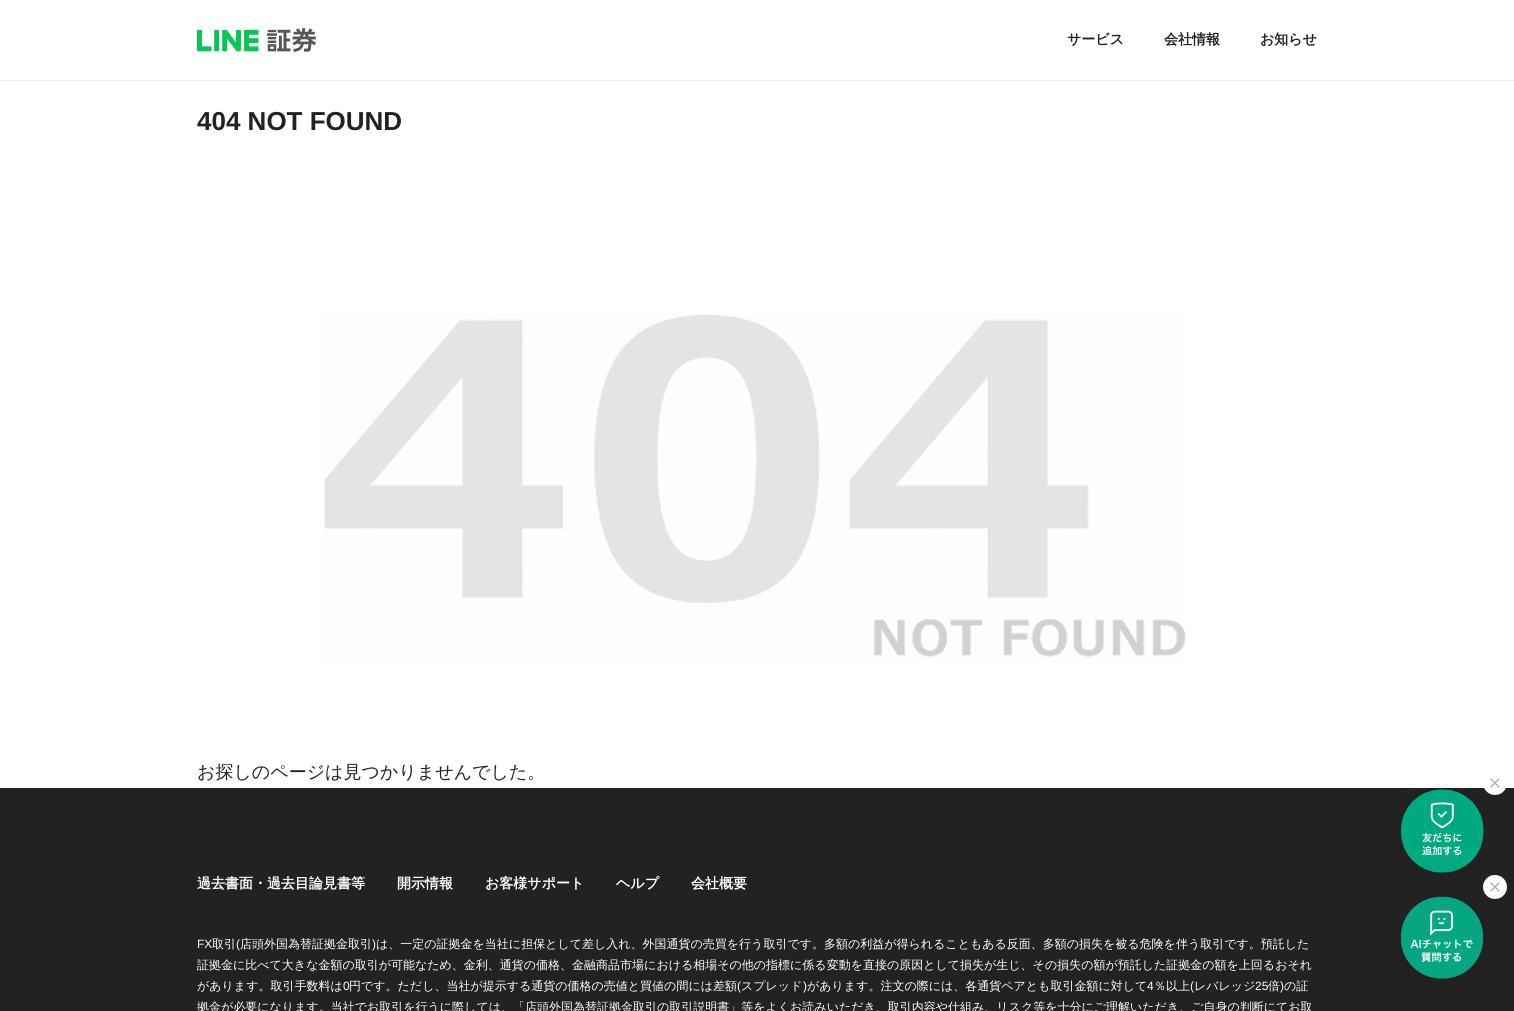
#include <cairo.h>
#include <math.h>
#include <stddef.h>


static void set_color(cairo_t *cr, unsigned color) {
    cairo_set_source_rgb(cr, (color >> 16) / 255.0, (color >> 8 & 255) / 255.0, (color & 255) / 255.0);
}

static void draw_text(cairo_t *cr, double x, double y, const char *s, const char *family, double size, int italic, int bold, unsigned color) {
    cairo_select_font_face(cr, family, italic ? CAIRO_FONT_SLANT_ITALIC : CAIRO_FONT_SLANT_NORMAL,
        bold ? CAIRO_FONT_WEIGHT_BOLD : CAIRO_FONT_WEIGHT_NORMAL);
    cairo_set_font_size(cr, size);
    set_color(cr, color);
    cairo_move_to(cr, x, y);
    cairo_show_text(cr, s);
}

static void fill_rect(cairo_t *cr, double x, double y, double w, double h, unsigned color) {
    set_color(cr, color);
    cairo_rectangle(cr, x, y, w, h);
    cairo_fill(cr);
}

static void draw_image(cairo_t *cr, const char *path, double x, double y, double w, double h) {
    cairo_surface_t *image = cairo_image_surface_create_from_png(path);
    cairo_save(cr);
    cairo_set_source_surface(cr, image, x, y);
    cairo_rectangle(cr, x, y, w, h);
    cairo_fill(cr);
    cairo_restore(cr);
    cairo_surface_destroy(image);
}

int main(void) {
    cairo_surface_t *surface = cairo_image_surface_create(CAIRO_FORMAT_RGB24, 1514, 1011);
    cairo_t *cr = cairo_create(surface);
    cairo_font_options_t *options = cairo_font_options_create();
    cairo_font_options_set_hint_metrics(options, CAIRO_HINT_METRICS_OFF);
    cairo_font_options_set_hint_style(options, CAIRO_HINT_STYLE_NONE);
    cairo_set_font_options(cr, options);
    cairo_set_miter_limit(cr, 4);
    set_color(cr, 0xFFFFFF);
    cairo_paint(cr);
    fill_rect(cr, 0, 80, 1514, 1, 0xEEEEEE);
    draw_image(cr, "assets/img1.png", 197, 28, 119, 24);
    draw_text(cr, 1067, 44, "サービス", "WenQuanYi Zen Hei", 14, 0, 1, 0x222222);
    draw_text(cr, 1164, 44, "会社情報", "WenQuanYi Zen Hei", 14, 0, 1, 0x222222);
    draw_text(cr, 1260, 44, "お知らせ", "WenQuanYi Zen Hei", 14, 0, 1, 0x222222);
    draw_text(cr, 197, 130, "404 NOT FOUND", "Liberation Sans", 26, 0, 1, 0x222222);
    draw_image(cr, "assets/img2.png", 323, 313, 863, 347);
    draw_text(cr, 197, 778, "お探しのページは見つかりませんでした。", "WenQuanYi Zen Hei Medium", 18, 0, 0, 0x222222);
    fill_rect(cr, 0, 788, 1514, 223, 0x222222);
    set_color(cr, 0xFFFFFF);
    cairo_new_path(cr);
    cairo_arc(cr, 1495, 783, 12, 0, 2 * M_PI);
    cairo_fill(cr);
    draw_image(cr, "assets/img3.png", 1401, 784, 83, 89);
    draw_image(cr, "assets/img4.png", 1490, 778, 10, 10);
    draw_text(cr, 197, 888, "過去書面・過去目論見書等", "WenQuanYi Zen Hei", 14, 0, 1, 0xFFFFFF);
    draw_text(cr, 397, 888, "開示情報", "WenQuanYi Zen Hei", 14, 0, 1, 0xFFFFFF);
    draw_text(cr, 485, 888, "お客様サポート", "WenQuanYi Zen Hei", 14, 0, 1, 0xFFFFFF);
    draw_text(cr, 616, 888, "ヘルプ", "WenQuanYi Zen Hei", 14, 0, 1, 0xFFFFFF);
    draw_text(cr, 691, 888, "会社概要", "WenQuanYi Zen Hei", 14, 0, 1, 0xFFFFFF);
    draw_text(cr, 197, 948, "FX", "Liberation Sans", 12, 0, 0, 0xFFFFFF);
    draw_text(cr, 212, 948, "取引", "WenQuanYi Zen Hei Medium", 12, 0, 0, 0xFFFFFF);
    draw_text(cr, 236, 948, "(", "Liberation Sans", 12, 0, 0, 0xFFFFFF);
    draw_text(cr, 240, 948, "店頭外国為替証拠金取引", "WenQuanYi Zen Hei Medium", 12, 0, 0, 0xFFFFFF);
    draw_text(cr, 372, 948, ")", "Liberation Sans", 12, 0, 0, 0xFFFFFF);
    draw_text(cr, 376, 948, "は、一定の証拠金を当社に担保として差し入れ、外国通貨の売買を行う取引です。多額の利益が得られることもある反面、多額の損失を被る危険を伴う取引です。預託した", "WenQuanYi Zen Hei Medium", 12, 0, 0, 0xFFFFFF);
    draw_text(cr, 197, 969, "証拠金に比べて大きな金額の取引が可能なため、金利、通貨の価格、金融商品市場における相場その他の指標に係る変動を直接の原因として損失が生じ、その損失の額が預託した証拠金の額を上回るおそれ", "WenQuanYi Zen Hei Medium", 12, 0, 0, 0xFFFFFF);
    draw_text(cr, 197, 990, "があります。取引手数料は", "WenQuanYi Zen Hei Medium", 12, 0, 0, 0xFFFFFF);
    draw_text(cr, 343, 990, "0", "Liberation Sans", 12, 0, 0, 0xFFFFFF);
    draw_text(cr, 349, 990, "円です。ただし、当社が提示する通貨の価格の売値と買値の間には差額", "WenQuanYi Zen Hei Medium", 12, 0, 0, 0xFFFFFF);
    draw_text(cr, 737, 990, "(", "Liberation Sans", 12, 0, 0, 0xFFFFFF);
    draw_text(cr, 741, 990, "スプレッド", "WenQuanYi Zen Hei Medium", 12, 0, 0, 0xFFFFFF);
    draw_text(cr, 803, 990, ")", "Liberation Sans", 12, 0, 0, 0xFFFFFF);
    draw_text(cr, 807, 990, "があります。注文の際には、各通貨ペアとも取引金額に対して", "WenQuanYi Zen Hei Medium", 12, 0, 0, 0xFFFFFF);
    draw_text(cr, 1147, 990, "4", "Liberation Sans", 12, 0, 0, 0xFFFFFF);
    draw_text(cr, 1154, 990, "％以上", "WenQuanYi Zen Hei Medium", 12, 0, 0, 0xFFFFFF);
    draw_text(cr, 1190, 990, "(", "Liberation Sans", 12, 0, 0, 0xFFFFFF);
    draw_text(cr, 1194, 990, "レバレッジ", "WenQuanYi Zen Hei Medium", 12, 0, 0, 0xFFFFFF);
    draw_text(cr, 1255, 990, "25", "Liberation Sans", 12, 0, 0, 0xFFFFFF);
    draw_text(cr, 1268, 990, "倍", "WenQuanYi Zen Hei Medium", 12, 0, 0, 0xFFFFFF);
    draw_text(cr, 1280, 990, ")", "Liberation Sans", 12, 0, 0, 0xFFFFFF);
    draw_text(cr, 1284, 990, "の証", "WenQuanYi Zen Hei Medium", 12, 0, 0, 0xFFFFFF);
    draw_text(cr, 197, 1011, "拠金が必要になります。当社でお取引を行うに際しては、「店頭外国為替証拠金取引の取引説明書」等をよくお読みいただき、取引内容や仕組み、リスク等を十分にご理解いただき、ご自身の判断にてお取", "WenQuanYi Zen Hei Medium", 12, 0, 0, 0xFFFFFF);
    draw_image(cr, "assets/img6.png", 1400, 896, 84, 83);
    cairo_arc(cr, 1495, 887, 12, 0, 2 * M_PI);
    cairo_fill(cr);
    draw_image(cr, "assets/img5.png", 1490, 882, 10, 10);
    cairo_surface_write_to_png(surface, "output.png");
    cairo_font_options_destroy(options);
    cairo_destroy(cr);
    cairo_surface_destroy(surface);
    return 0;
}
